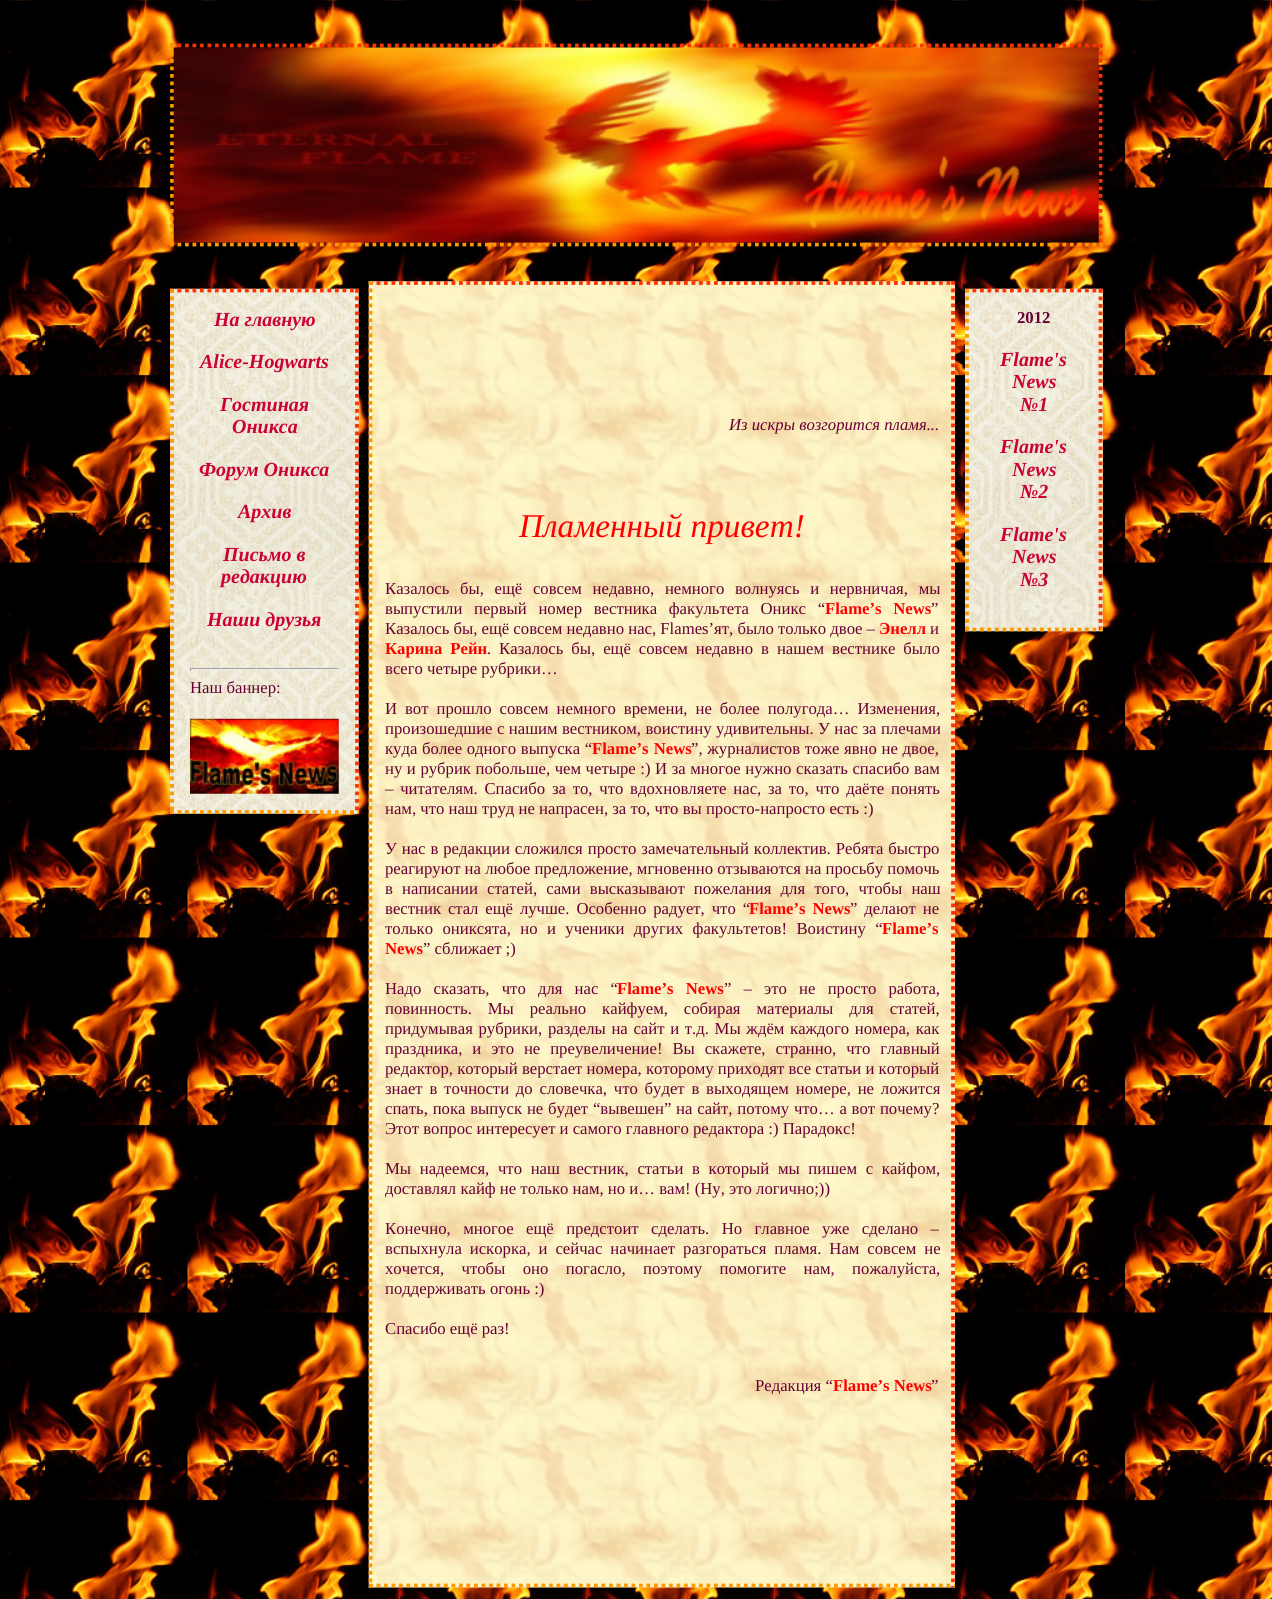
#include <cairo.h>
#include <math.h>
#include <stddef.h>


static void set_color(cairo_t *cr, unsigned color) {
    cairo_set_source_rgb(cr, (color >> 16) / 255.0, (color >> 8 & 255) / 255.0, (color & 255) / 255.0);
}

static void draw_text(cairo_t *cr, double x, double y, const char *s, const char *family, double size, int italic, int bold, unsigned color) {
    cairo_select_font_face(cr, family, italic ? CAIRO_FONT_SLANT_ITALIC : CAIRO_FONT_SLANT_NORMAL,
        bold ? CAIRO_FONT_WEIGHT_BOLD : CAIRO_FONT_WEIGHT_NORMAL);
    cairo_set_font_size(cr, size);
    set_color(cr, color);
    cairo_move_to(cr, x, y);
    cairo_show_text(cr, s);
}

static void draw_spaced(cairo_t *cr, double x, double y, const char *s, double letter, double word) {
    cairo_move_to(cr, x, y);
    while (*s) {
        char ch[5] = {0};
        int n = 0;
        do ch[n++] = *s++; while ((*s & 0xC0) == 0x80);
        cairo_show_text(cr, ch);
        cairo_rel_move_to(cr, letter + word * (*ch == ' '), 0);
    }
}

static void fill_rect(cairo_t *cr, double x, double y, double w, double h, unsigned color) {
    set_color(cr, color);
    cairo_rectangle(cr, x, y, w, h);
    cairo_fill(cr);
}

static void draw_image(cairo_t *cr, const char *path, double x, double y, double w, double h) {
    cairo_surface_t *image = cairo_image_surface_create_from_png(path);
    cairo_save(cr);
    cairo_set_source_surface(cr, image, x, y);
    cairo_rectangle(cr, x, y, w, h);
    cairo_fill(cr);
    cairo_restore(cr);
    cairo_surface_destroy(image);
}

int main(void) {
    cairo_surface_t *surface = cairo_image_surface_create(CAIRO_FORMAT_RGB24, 1272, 1599);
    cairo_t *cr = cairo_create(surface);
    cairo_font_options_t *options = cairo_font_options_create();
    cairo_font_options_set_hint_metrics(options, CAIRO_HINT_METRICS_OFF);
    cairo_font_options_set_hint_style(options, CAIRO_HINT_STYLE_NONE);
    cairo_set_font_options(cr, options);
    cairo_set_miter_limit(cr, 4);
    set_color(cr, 0xFFFFFF);
    cairo_paint(cr);
    draw_image(cr, "assets/img1.png", 0, 0, 1272, 1599);
    cairo_new_path(cr);
    cairo_move_to(cr, 170, 45.5);
    cairo_line_to(cr, 1102.5, 45.5);
    set_color(cr, 0xFF3300);
    cairo_set_line_width(cr, 3.8);
    cairo_set_dash(cr, (double[]){3.75, 3.75}, 2, 0);
    cairo_stroke(cr);
    cairo_new_path(cr);
    cairo_move_to(cr, 1100.5, 44);
    cairo_line_to(cr, 1100.5, 246);
    cairo_stroke(cr);
    cairo_new_path(cr);
    cairo_move_to(cr, 170, 244.5);
    cairo_line_to(cr, 1102.5, 244.5);
    set_color(cr, 0xFF9900);
    cairo_stroke(cr);
    cairo_new_path(cr);
    cairo_move_to(cr, 172, 44);
    cairo_line_to(cr, 172, 246);
    cairo_stroke(cr);
    draw_image(cr, "assets/img2.png", 173, 47, 926, 196);
    draw_image(cr, "assets/img3.png", 170, 288, 189, 526);
    cairo_new_path(cr);
    cairo_move_to(cr, 170, 290.5);
    cairo_line_to(cr, 359, 290.5);
    set_color(cr, 0xFF3300);
    cairo_stroke(cr);
    cairo_new_path(cr);
    cairo_move_to(cr, 357, 289);
    cairo_line_to(cr, 357, 814);
    cairo_stroke(cr);
    cairo_new_path(cr);
    cairo_move_to(cr, 170, 812);
    cairo_line_to(cr, 359, 812);
    set_color(cr, 0xFF9900);
    cairo_stroke(cr);
    cairo_new_path(cr);
    cairo_move_to(cr, 172, 289);
    cairo_line_to(cr, 172, 814);
    cairo_stroke(cr);
    draw_text(cr, 214, 326, "На главную", "Liberation Serif", 20, 1, 1, 0xCC0033);
    draw_text(cr, 200, 368, "Alice-Hogwarts", "Liberation Serif", 20, 1, 1, 0xCC0033);
    draw_text(cr, 220, 411, "Гостиная", "Liberation Serif", 20, 1, 1, 0xCC0033);
    draw_text(cr, 232, 433, "Оникса", "Liberation Serif", 20, 1, 1, 0xCC0033);
    draw_text(cr, 199, 476, "Форум Оникса", "Liberation Serif", 20, 1, 1, 0xCC0033);
    draw_text(cr, 238, 518, "Архив", "Liberation Serif", 20, 1, 1, 0xCC0033);
    draw_text(cr, 223, 561, "Письмо в", "Liberation Serif", 20, 1, 1, 0xCC0033);
    draw_text(cr, 221, 583, "редакцию", "Liberation Serif", 20, 1, 1, 0xCC0033);
    draw_text(cr, 207, 626, "Наши друзья", "Liberation Serif", 20, 1, 1, 0xCC0033);
    fill_rect(cr, 190, 668, 149, 1, 0x9F9F9F);
    fill_rect(cr, 338, 668, 1, 3, 0xEEEEEE);
    fill_rect(cr, 190, 669, 149, 1, 0xEEEEEE);
    fill_rect(cr, 190, 668, 1, 3, 0x9F9F9F);
    draw_text(cr, 190, 693, "Наш баннер:", "Liberation Serif", 16.7, 0, 0, 0x660033);
    draw_image(cr, "assets/img4.png", 190, 718, 149, 76);
    draw_image(cr, "assets/img5.png", 368, 281, 587, 1307);
    cairo_new_path(cr);
    cairo_move_to(cr, 369, 283);
    cairo_line_to(cr, 955, 283);
    set_color(cr, 0xFF3300);
    cairo_stroke(cr);
    cairo_new_path(cr);
    cairo_move_to(cr, 953, 281);
    cairo_line_to(cr, 953, 1587.5);
    cairo_stroke(cr);
    cairo_new_path(cr);
    cairo_move_to(cr, 369, 1585.5);
    cairo_line_to(cr, 955, 1585.5);
    set_color(cr, 0xFF9900);
    cairo_stroke(cr);
    cairo_new_path(cr);
    cairo_move_to(cr, 370.5, 281);
    cairo_line_to(cr, 370.5, 1587.5);
    cairo_stroke(cr);
    draw_text(cr, 729, 430, "Из искры возгорится пламя...", "Liberation Serif", 16.7, 1, 0, 0x660033);
    draw_text(cr, 519, 537, "Пламенный привет!", "Liberation Serif", 33.25, 1, 0, 0xFF0000);
    cairo_select_font_face(cr, "Liberation Serif", CAIRO_FONT_SLANT_NORMAL, CAIRO_FONT_WEIGHT_NORMAL);
    cairo_set_font_size(cr, 16.7);
    set_color(cr, 0x660033);
    draw_spaced(cr, 385, 594, "Казалось бы, ещё совсем недавно, немного волнуясь и нервничая, мы", 0, 6.5);
    draw_spaced(cr, 385, 614, "выпустили первый номер вестника факультета Оникс “", 0, 7.5);
    cairo_select_font_face(cr, "Liberation Serif", CAIRO_FONT_SLANT_NORMAL, CAIRO_FONT_WEIGHT_BOLD);
    set_color(cr, 0xFF0000);
    draw_spaced(cr, 825, 614, "Flame’s News", 0, 7.5);
    draw_text(cr, 931, 614, "”", "Liberation Serif", 16.7, 0, 0, 0x660033);
    draw_text(cr, 385, 634, "Казалось бы, ещё совсем недавно нас, Flames’ят, было только двое –", "Liberation Serif", 16.7, 0, 0, 0x660033);
    draw_text(cr, 879, 634, "Энелл", "Liberation Serif", 16.7, 0, 1, 0xFF0000);
    draw_text(cr, 930, 634, "и", "Liberation Serif", 16.7, 0, 0, 0x660033);
    cairo_select_font_face(cr, "Liberation Serif", CAIRO_FONT_SLANT_NORMAL, CAIRO_FONT_WEIGHT_BOLD);
    set_color(cr, 0xFF0000);
    draw_spaced(cr, 385, 654, "Карина Рейн", 0, 3.75);
    cairo_select_font_face(cr, "Liberation Serif", CAIRO_FONT_SLANT_NORMAL, CAIRO_FONT_WEIGHT_NORMAL);
    set_color(cr, 0x660033);
    draw_spaced(cr, 487, 654, ". Казалось бы, ещё совсем недавно в нашем вестнике было", 0, 3.75);
    draw_text(cr, 385, 674, "всего четыре рубрики…", "Liberation Serif", 16.7, 0, 0, 0x660033);
    draw_spaced(cr, 385, 714, "И вот прошло совсем немного времени, не более полугода… Изменения,", 0, 3.75);
    draw_spaced(cr, 385, 734, "произошедшие с нашим вестником, воистину удивительны. У нас за плечами", 0, 0.25);
    draw_spaced(cr, 385, 754, "куда более одного выпуска “", 0, 0.5);
    cairo_select_font_face(cr, "Liberation Serif", CAIRO_FONT_SLANT_NORMAL, CAIRO_FONT_WEIGHT_BOLD);
    set_color(cr, 0xFF0000);
    draw_spaced(cr, 592, 754, "Flame’s News", 0, 1);
    cairo_select_font_face(cr, "Liberation Serif", CAIRO_FONT_SLANT_NORMAL, CAIRO_FONT_WEIGHT_NORMAL);
    set_color(cr, 0x660033);
    draw_spaced(cr, 691, 754, "”, журналистов тоже явно не двое,", 0, 0.5);
    draw_spaced(cr, 385, 774, "ну и рубрик побольше, чем четыре :) И за многое нужно сказать спасибо вам", 0, 0.4);
    draw_spaced(cr, 385, 794, "– читателям. Спасибо за то, что вдохновляете нас, за то, что даёте понять", 0, 2.6);
    draw_text(cr, 385, 814, "нам, что наш труд не напрасен, за то, что вы просто-напросто есть :)", "Liberation Serif", 16.7, 0, 0, 0x660033);
    draw_spaced(cr, 385, 854, "У нас в редакции сложился просто замечательный коллектив. Ребята быстро", 0, 0.75);
    draw_text(cr, 385, 874, "реагируют на любое предложение, мгновенно отзываются на просьбу помочь", "Liberation Serif", 16.7, 0, 0, 0x660033);
    draw_spaced(cr, 385, 894, "в написании статей, сами высказывают пожелания для того, чтобы наш", 0, 5);
    draw_spaced(cr, 385, 914, "вестник стал ещё лучше. Особенно радует, что “", 0, 2.75);
    cairo_select_font_face(cr, "Liberation Serif", CAIRO_FONT_SLANT_NORMAL, CAIRO_FONT_WEIGHT_BOLD);
    set_color(cr, 0xFF0000);
    draw_spaced(cr, 749, 914, "Flame’s News", 0, 2.75);
    cairo_select_font_face(cr, "Liberation Serif", CAIRO_FONT_SLANT_NORMAL, CAIRO_FONT_WEIGHT_NORMAL);
    set_color(cr, 0x660033);
    draw_spaced(cr, 850, 914, "” делают не", 0, 2.75);
    draw_spaced(cr, 385, 934, "только ониксята, но и ученики других факультетов! Воистину “", 0, 5.25);
    draw_text(cr, 882, 934, "Flame’s", "Liberation Serif", 16.7, 0, 1, 0xFF0000);
    draw_text(cr, 385, 954, "News", "Liberation Serif", 16.7, 0, 1, 0xFF0000);
    draw_text(cr, 423, 954, "” сближает ;)", "Liberation Serif", 16.7, 0, 0, 0x660033);
    draw_spaced(cr, 385, 994, "Надо сказать, что для нас “", 0, 8);
    cairo_select_font_face(cr, "Liberation Serif", CAIRO_FONT_SLANT_NORMAL, CAIRO_FONT_WEIGHT_BOLD);
    set_color(cr, 0xFF0000);
    draw_spaced(cr, 617, 994, "Flame’s News", 0, 8);
    cairo_select_font_face(cr, "Liberation Serif", CAIRO_FONT_SLANT_NORMAL, CAIRO_FONT_WEIGHT_NORMAL);
    set_color(cr, 0x660033);
    draw_spaced(cr, 724, 994, "” – это не просто работа,", 0, 8);
    draw_spaced(cr, 385, 1014, "повинность. Мы реально кайфуем, собирая материалы для статей,", 0, 11.75);
    draw_spaced(cr, 385, 1034, "придумывая рубрики, разделы на сайт и т.д. Мы ждём каждого номера, как", 0, 1.5);
    draw_spaced(cr, 385, 1054, "праздника, и это не преувеличение! Вы скажете, странно, что главный", 0, 5.75);
    draw_text(cr, 385, 1074, "редактор, который верстает номера, которому приходят все статьи и который", "Liberation Serif", 16.7, 0, 0, 0x660033);
    draw_spaced(cr, 385, 1094, "знает в точности до словечка, что будет в выходящем номере, не ложится", 0, 2.6);
    draw_spaced(cr, 385, 1114, "спать, пока выпуск не будет “вывешен” на сайт, потому что… а вот почему?", 0, 0.6);
    draw_text(cr, 385, 1134, "Этот вопрос интересует и самого главного редактора :) Парадокс!", "Liberation Serif", 16.7, 0, 0, 0x660033);
    draw_spaced(cr, 385, 1174, "Мы надеемся, что наш вестник, статьи в который мы пишем с кайфом,", 0, 4.5);
    draw_text(cr, 385, 1194, "доставлял кайф не только нам, но и… вам! (Ну, это логично;))", "Liberation Serif", 16.7, 0, 0, 0x660033);
    draw_spaced(cr, 385, 1234, "Конечно, многое ещё предстоит сделать. Но главное уже сделано –", 0, 8.25);
    draw_spaced(cr, 385, 1254, "вспыхнула искорка, и сейчас начинает разгораться пламя. Нам совсем не", 0, 3.75);
    draw_spaced(cr, 385, 1274, "хочется, чтобы оно погасло, поэтому помогите нам, пожалуйста,", 0, 13.25);
    draw_text(cr, 385, 1294, "поддерживать огонь :)", "Liberation Serif", 16.7, 0, 0, 0x660033);
    draw_text(cr, 385, 1334, "Спасибо ещё раз!", "Liberation Serif", 16.7, 0, 0, 0x660033);
    draw_text(cr, 755, 1391, "Редакция “", "Liberation Serif", 16.7, 0, 0, 0x660033);
    draw_text(cr, 833, 1391, "Flame’s News", "Liberation Serif", 16.7, 0, 1, 0xFF0000);
    draw_text(cr, 931, 1391, "”", "Liberation Serif", 16.7, 0, 0, 0x660033);
    fill_rect(cr, 1102, 289, 1, 342, 0xFFCC66);
    draw_image(cr, "assets/img6.png", 965, 288, 138, 344);
    cairo_new_path(cr);
    cairo_move_to(cr, 965, 290.5);
    cairo_line_to(cr, 1102.5, 290.5);
    set_color(cr, 0xFF3300);
    cairo_stroke(cr);
    cairo_new_path(cr);
    cairo_move_to(cr, 1100.5, 289);
    cairo_line_to(cr, 1100.5, 631);
    cairo_stroke(cr);
    cairo_new_path(cr);
    cairo_move_to(cr, 965, 629.5);
    cairo_line_to(cr, 1102.5, 629.5);
    set_color(cr, 0xFF9900);
    cairo_stroke(cr);
    cairo_new_path(cr);
    cairo_move_to(cr, 967, 289);
    cairo_line_to(cr, 967, 631);
    cairo_stroke(cr);
    draw_text(cr, 1017, 323, "2012", "Liberation Serif", 16.7, 0, 1, 0x660033);
    draw_text(cr, 1000, 366, "Flame's", "Liberation Serif", 20, 1, 1, 0xCC0033);
    draw_text(cr, 1012, 388, "News", "Liberation Serif", 20, 1, 1, 0xCC0033);
    draw_text(cr, 1020, 411, "№1", "Liberation Serif", 20, 1, 1, 0xCC0033);
    draw_text(cr, 1000, 453, "Flame's", "Liberation Serif", 20, 1, 1, 0xCC0033);
    draw_text(cr, 1012, 476, "News", "Liberation Serif", 20, 1, 1, 0xCC0033);
    draw_text(cr, 1020, 498, "№2", "Liberation Serif", 20, 1, 1, 0xCC0033);
    draw_text(cr, 1000, 541, "Flame's", "Liberation Serif", 20, 1, 1, 0xCC0033);
    draw_text(cr, 1012, 563, "News", "Liberation Serif", 20, 1, 1, 0xCC0033);
    draw_text(cr, 1020, 586, "№3", "Liberation Serif", 20, 1, 1, 0xCC0033);
    cairo_surface_write_to_png(surface, "output.png");
    cairo_font_options_destroy(options);
    cairo_destroy(cr);
    cairo_surface_destroy(surface);
    return 0;
}
